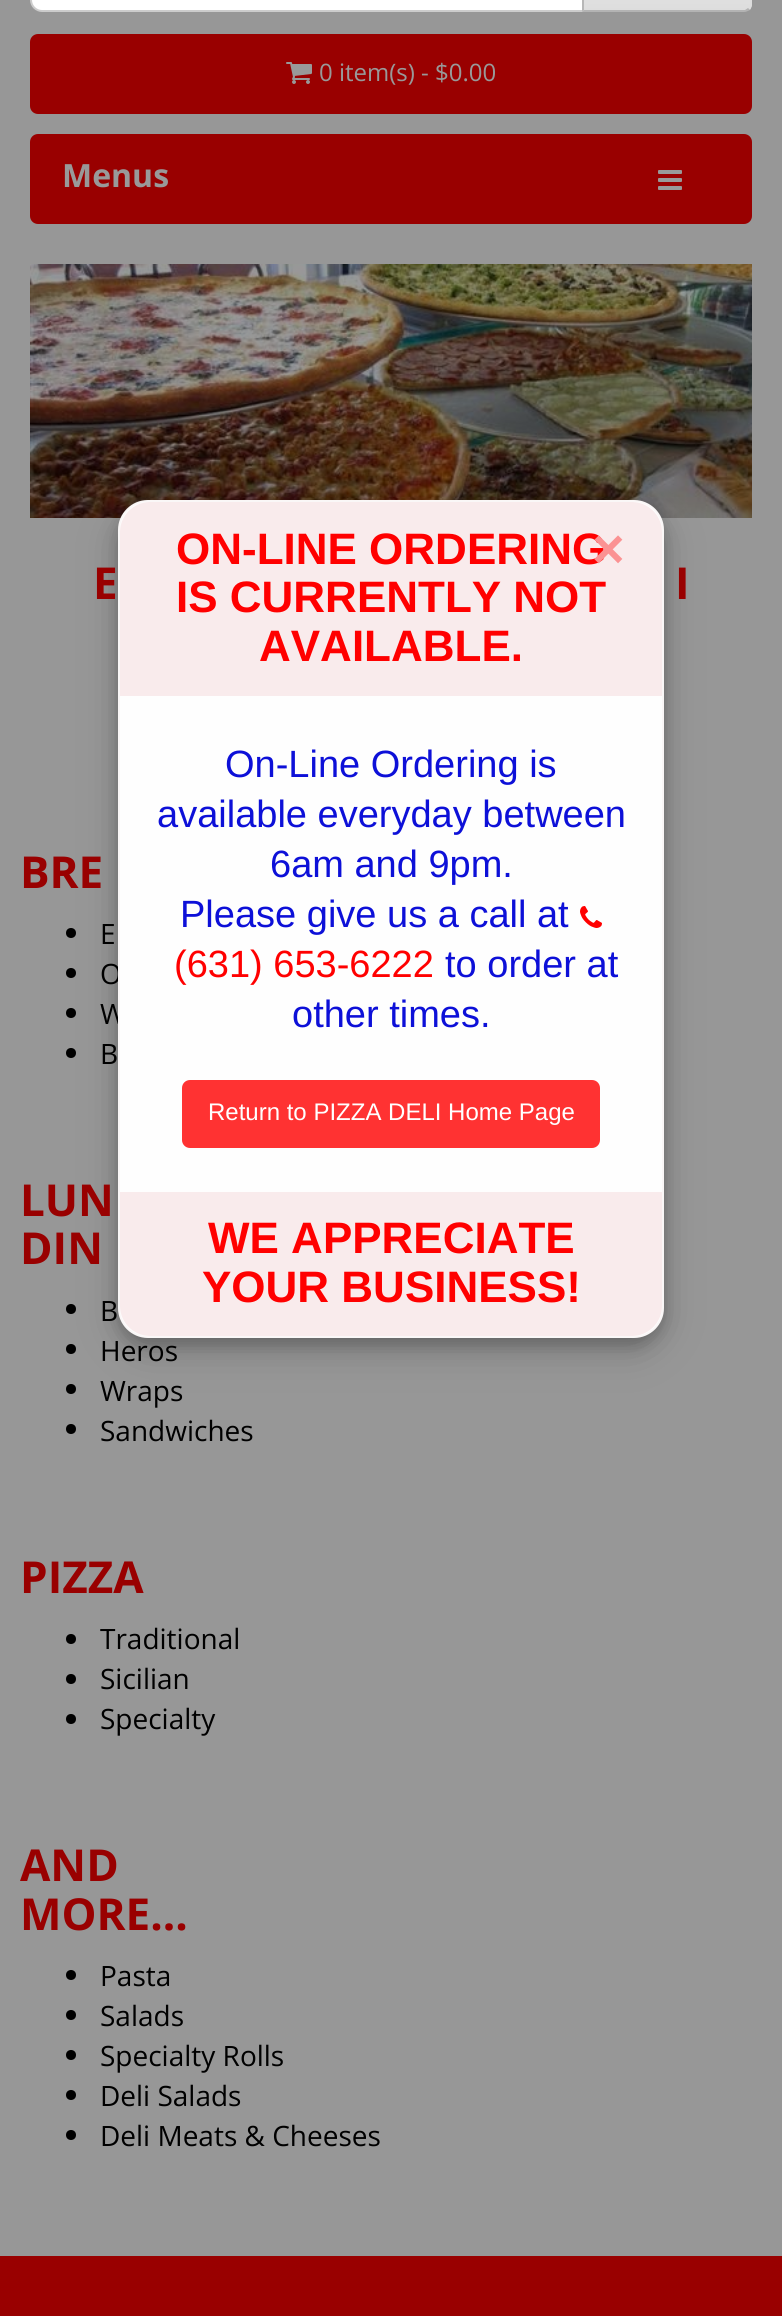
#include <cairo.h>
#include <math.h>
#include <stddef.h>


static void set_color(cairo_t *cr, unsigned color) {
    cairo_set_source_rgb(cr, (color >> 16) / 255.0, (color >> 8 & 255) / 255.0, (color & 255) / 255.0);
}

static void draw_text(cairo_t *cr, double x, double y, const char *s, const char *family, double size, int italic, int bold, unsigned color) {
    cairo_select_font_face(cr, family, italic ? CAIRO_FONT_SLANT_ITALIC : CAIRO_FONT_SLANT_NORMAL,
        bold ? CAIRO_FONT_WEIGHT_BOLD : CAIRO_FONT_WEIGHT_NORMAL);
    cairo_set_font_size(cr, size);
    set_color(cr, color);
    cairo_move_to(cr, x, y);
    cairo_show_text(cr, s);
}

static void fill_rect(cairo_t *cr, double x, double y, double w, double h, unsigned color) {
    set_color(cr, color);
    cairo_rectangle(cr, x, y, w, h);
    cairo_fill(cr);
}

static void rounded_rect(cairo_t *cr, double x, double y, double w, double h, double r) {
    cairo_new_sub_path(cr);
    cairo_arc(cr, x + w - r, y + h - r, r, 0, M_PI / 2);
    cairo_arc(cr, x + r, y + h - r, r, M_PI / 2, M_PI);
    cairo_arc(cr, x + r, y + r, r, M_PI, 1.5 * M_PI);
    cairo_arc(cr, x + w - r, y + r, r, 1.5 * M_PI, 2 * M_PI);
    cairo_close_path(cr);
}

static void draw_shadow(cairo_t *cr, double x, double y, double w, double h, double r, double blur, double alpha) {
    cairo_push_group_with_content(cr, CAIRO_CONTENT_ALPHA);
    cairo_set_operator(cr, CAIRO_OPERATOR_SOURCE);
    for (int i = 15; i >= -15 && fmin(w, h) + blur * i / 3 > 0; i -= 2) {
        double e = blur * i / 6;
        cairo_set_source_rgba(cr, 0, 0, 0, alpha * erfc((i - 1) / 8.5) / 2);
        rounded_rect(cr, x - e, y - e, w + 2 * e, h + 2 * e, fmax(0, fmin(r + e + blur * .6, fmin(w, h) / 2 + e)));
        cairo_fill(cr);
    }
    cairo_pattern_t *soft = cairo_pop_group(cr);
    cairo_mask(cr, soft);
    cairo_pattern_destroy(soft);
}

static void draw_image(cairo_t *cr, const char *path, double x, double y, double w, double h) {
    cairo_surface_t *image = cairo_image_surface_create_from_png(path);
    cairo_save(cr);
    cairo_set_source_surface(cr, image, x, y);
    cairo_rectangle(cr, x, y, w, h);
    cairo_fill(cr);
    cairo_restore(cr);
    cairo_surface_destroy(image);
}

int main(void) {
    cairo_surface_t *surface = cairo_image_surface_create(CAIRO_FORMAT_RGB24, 782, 2316);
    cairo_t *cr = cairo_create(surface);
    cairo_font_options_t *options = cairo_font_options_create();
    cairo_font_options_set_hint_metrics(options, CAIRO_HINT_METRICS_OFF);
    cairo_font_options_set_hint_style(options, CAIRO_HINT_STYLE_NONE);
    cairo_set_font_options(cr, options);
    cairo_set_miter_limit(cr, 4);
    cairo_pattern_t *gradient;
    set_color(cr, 0x979797);
    cairo_paint(cr);
    set_color(cr, 0xFFFFFF);
    cairo_new_path(cr);
    cairo_move_to(cr, 42, -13);
    cairo_line_to(cr, 583, -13);
    cairo_line_to(cr, 583, 11);
    cairo_line_to(cr, 42, 11);
    cairo_curve_to(cr, 36, 11, 31, 6, 31, 0);
    cairo_line_to(cr, 31, -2);
    cairo_curve_to(cr, 31, -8, 36, -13, 42, -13);
    cairo_close_path(cr);
    cairo_fill_preserve(cr);
    set_color(cr, 0xCCCCCC);
    cairo_stroke(cr);
    cairo_save(cr);
    cairo_new_path(cr);
    cairo_move_to(cr, 582, -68);
    cairo_line_to(cr, 744, -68);
    cairo_curve_to(cr, 748.5, -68, 752, -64.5, 752, -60);
    cairo_line_to(cr, 752, 4);
    cairo_curve_to(cr, 752, 8.5, 748.5, 12, 744, 12);
    cairo_line_to(cr, 582, 12);
    cairo_close_path(cr);
    cairo_clip(cr);
    gradient = cairo_pattern_create_linear(667, -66, 667, 10);
    cairo_pattern_add_color_stop_rgba(gradient, 0, 0.933, 0.933, 0.933, 1);
    cairo_pattern_add_color_stop_rgba(gradient, 1, 0.867, 0.867, 0.867, 1);
    cairo_set_source(cr, gradient);
    cairo_pattern_destroy(gradient);
    cairo_rectangle(cr, 584, 0, 168, 10);
    cairo_fill(cr);
    cairo_restore(cr);
    set_color(cr, 0xDDDDDD);
    cairo_new_path(cr);
    cairo_move_to(cr, 752, 4);
    cairo_line_to(cr, 752, -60);
    cairo_curve_to(cr, 752, -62, 751, -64, 750, -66);
    cairo_line_to(cr, 748, -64);
    cairo_curve_to(cr, 749, -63, 750, -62, 750, -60);
    cairo_line_to(cr, 750, 4);
    cairo_curve_to(cr, 750, 6, 749, 7, 748, 8);
    cairo_line_to(cr, 750, 10);
    cairo_curve_to(cr, 751, 8, 752, 6, 752, 4);
    cairo_close_path(cr);
    cairo_fill(cr);
    set_color(cr, 0xB3B3B3);
    cairo_new_path(cr);
    cairo_move_to(cr, 744, 12);
    cairo_curve_to(cr, 746, 12, 748, 11, 750, 10);
    cairo_line_to(cr, 748, 8);
    cairo_line_to(cr, 745, 10);
    cairo_line_to(cr, 584, 10);
    cairo_line_to(cr, 582, 12);
    cairo_close_path(cr);
    cairo_fill(cr);
    set_color(cr, 0xB7B7B7);
    cairo_new_path(cr);
    cairo_move_to(cr, 582, -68);
    cairo_line_to(cr, 582, 12);
    cairo_line_to(cr, 584, 10);
    cairo_line_to(cr, 584, -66);
    cairo_close_path(cr);
    cairo_fill(cr);
    set_color(cr, 0x990000);
    rounded_rect(cr, 31, 35, 720, 78, 7);
    cairo_fill_preserve(cr);
    cairo_stroke(cr);
    draw_image(cr, "assets/img1.png", 286, 62, 26, 22);
    draw_text(cr, 319, 81, "0 item(s) - $0.00", "Open Sans", 24, 0, 0, 0x999999);
    set_color(cr, 0x990000);
    rounded_rect(cr, 31, 135, 720, 88, 7);
    cairo_fill_preserve(cr);
    cairo_stroke(cr);
    draw_text(cr, 62, 187, "Menus", "Open Sans", 32, 0, 1, 0x999999);
    draw_image(cr, "assets/img2.png", 658, 170, 24, 20);
    draw_image(cr, "assets/img4.png", 30, 264, 722, 254);
    set_color(cr, 0x000000);
    cairo_arc(cr, 71, 933, 5, 0, 2 * M_PI);
    cairo_fill(cr);
    cairo_arc(cr, 71, 973, 5, 0, 2 * M_PI);
    cairo_fill(cr);
    cairo_arc(cr, 71, 1013, 5, 0, 2 * M_PI);
    cairo_fill(cr);
    cairo_arc(cr, 71, 1053, 5, 0, 2 * M_PI);
    cairo_fill(cr);
    cairo_arc(cr, 71, 1309, 5, 0, 2 * M_PI);
    cairo_fill(cr);
    cairo_arc(cr, 71, 1349, 5, 0, 2 * M_PI);
    cairo_fill(cr);
    cairo_arc(cr, 71, 1389, 5, 0, 2 * M_PI);
    cairo_fill(cr);
    set_color(cr, 0x000000);
    draw_shadow(cr, 118, 512, 546, 838, 30, 20, 0.19);
    draw_shadow(cr, 118, 508, 546, 838, 30, 8, 0.2);
    draw_text(cr, 100, 984, "O", "Open Sans", 28, 0, 0, 0x000000);
    draw_text(cr, 100, 1024, "W", "Open Sans", 28, 0, 0, 0x000000);
    set_color(cr, 0xFEFEFE);
    rounded_rect(cr, 119, 501, 544, 836, 29);
    cairo_fill_preserve(cr);
    set_color(cr, 0xFAF7F7);
    cairo_stroke(cr);
    set_color(cr, 0xF9EBEC);
    cairo_new_path(cr);
    cairo_move_to(cr, 150, 502);
    cairo_line_to(cr, 632, 502);
    cairo_curve_to(cr, 648.5, 502, 662, 515.5, 662, 532);
    cairo_line_to(cr, 662, 696);
    cairo_line_to(cr, 120, 696);
    cairo_line_to(cr, 120, 532);
    cairo_curve_to(cr, 120, 515.5, 133.5, 502, 150, 502);
    cairo_close_path(cr);
    cairo_fill(cr);
    draw_text(cr, 176, 564, "ON-LINE ORDERING", "Liberation Sans", 44, 0, 1, 0xFF0000);
    draw_text(cr, 176, 612, "IS CURRENTLY NOT", "Liberation Sans", 44, 0, 1, 0xFF0000);
    draw_text(cr, 259, 661, "AVAILABLE.", "Liberation Sans", 44, 0, 1, 0xFF0000);
    draw_text(cr, 592, 568, "×", "Liberation Sans", 56, 0, 1, 0xFB9293);
    draw_text(cr, 225, 777, "On-Line Ordering is", "Liberation Sans", 38, 0, 0, 0x0D10D8);
    draw_text(cr, 157, 827, "available everyday between", "Liberation Sans", 38, 0, 0, 0x0D10D8);
    draw_text(cr, 270, 877, "6am and 9pm.", "Liberation Sans", 38, 0, 0, 0x0D10D8);
    draw_text(cr, 180, 927, "Please give us a call at", "Liberation Sans", 38, 0, 0, 0x0D10D8);
    draw_image(cr, "assets/img3.png", 580, 906, 22, 22);
    draw_text(cr, 174, 977, "(631) 653-6222", "Liberation Sans", 38, 0, 0, 0xFF0000);
    draw_text(cr, 445, 977, "to order at", "Liberation Sans", 38, 0, 0, 0x0D10D8);
    draw_text(cr, 292, 1027, "other times.", "Liberation Sans", 38, 0, 0, 0x0D10D8);
    set_color(cr, 0xFF3232);
    rounded_rect(cr, 183, 1081, 416, 66, 7);
    cairo_fill_preserve(cr);
    cairo_stroke(cr);
    draw_text(cr, 208, 1120, "Return to PIZZA DELI Home Page", "Liberation Sans", 24, 0, 0, 0xFFFFFF);
    set_color(cr, 0xF9EBEC);
    cairo_new_path(cr);
    cairo_move_to(cr, 120, 1192);
    cairo_line_to(cr, 662, 1192);
    cairo_line_to(cr, 662, 1306);
    cairo_curve_to(cr, 662, 1322.5, 648.5, 1336, 632, 1336);
    cairo_line_to(cr, 150, 1336);
    cairo_curve_to(cr, 133.5, 1336, 120, 1322.5, 120, 1306);
    cairo_close_path(cr);
    cairo_fill(cr);
    draw_text(cr, 208, 1253, "WE APPRECIATE", "Liberation Sans", 44, 0, 1, 0xFF0000);
    draw_text(cr, 202, 1302, "YOUR BUSINESS!", "Liberation Sans", 44, 0, 1, 0xFF0000);
    draw_text(cr, 93, 599, "E", "Open Sans", 44, 0, 1, 0x990000);
    draw_text(cr, 675, 599, "I", "Open Sans", 44, 0, 1, 0x990000);
    draw_text(cr, 20, 888, "BRE", "Open Sans", 44, 0, 1, 0x990000);
    draw_text(cr, 100, 944, "E", "Open Sans", 28, 0, 0, 0x000000);
    draw_text(cr, 100, 1064, "B", "Open Sans", 28, 0, 0, 0x000000);
    draw_text(cr, 20, 1216, "LUN", "Open Sans", 44, 0, 1, 0x990000);
    draw_text(cr, 20, 1264, "DIN", "Open Sans", 44, 0, 1, 0x990000);
    draw_text(cr, 100, 1321, "B", "Open Sans", 28, 0, 0, 0x000000);
    draw_text(cr, 100, 1361, "Heros", "Open Sans", 28, 0, 0, 0x000000);
    draw_text(cr, 100, 1401, "Wraps", "Open Sans", 28, 0, 0, 0x000000);
    cairo_new_path(cr);
    cairo_arc(cr, 71, 1429, 5, 0, 2 * M_PI);
    cairo_fill(cr);
    draw_text(cr, 100, 1441, "Sandwiches", "Open Sans", 28, 0, 0, 0x000000);
    draw_text(cr, 20, 1593, "PIZZA", "Open Sans", 44, 0, 1, 0x990000);
    set_color(cr, 0x000000);
    cairo_new_path(cr);
    cairo_arc(cr, 71, 1639, 5, 0, 2 * M_PI);
    cairo_fill(cr);
    draw_text(cr, 100, 1649, "Traditional", "Open Sans", 28, 0, 0, 0x000000);
    cairo_new_path(cr);
    cairo_arc(cr, 71, 1679, 5, 0, 2 * M_PI);
    cairo_fill(cr);
    draw_text(cr, 100, 1689, "Sicilian", "Open Sans", 28, 0, 0, 0x000000);
    cairo_new_path(cr);
    cairo_arc(cr, 71, 1719, 5, 0, 2 * M_PI);
    cairo_fill(cr);
    draw_text(cr, 100, 1729, "Specialty", "Open Sans", 28, 0, 0, 0x000000);
    draw_text(cr, 20, 1881, "AND", "Open Sans", 44, 0, 1, 0x990000);
    draw_text(cr, 20, 1930, "MORE...", "Open Sans", 44, 0, 1, 0x990000);
    set_color(cr, 0x000000);
    cairo_new_path(cr);
    cairo_arc(cr, 71, 1975, 5, 0, 2 * M_PI);
    cairo_fill(cr);
    draw_text(cr, 100, 1986, "Pasta", "Open Sans", 28, 0, 0, 0x000000);
    cairo_new_path(cr);
    cairo_arc(cr, 71, 2015, 5, 0, 2 * M_PI);
    cairo_fill(cr);
    draw_text(cr, 100, 2026, "Salads", "Open Sans", 28, 0, 0, 0x000000);
    cairo_new_path(cr);
    cairo_arc(cr, 71, 2055, 5, 0, 2 * M_PI);
    cairo_fill(cr);
    draw_text(cr, 100, 2066, "Specialty Rolls", "Open Sans", 28, 0, 0, 0x000000);
    cairo_new_path(cr);
    cairo_arc(cr, 71, 2095, 5, 0, 2 * M_PI);
    cairo_fill(cr);
    draw_text(cr, 100, 2106, "Deli Salads", "Open Sans", 28, 0, 0, 0x000000);
    cairo_new_path(cr);
    cairo_arc(cr, 71, 2135, 5, 0, 2 * M_PI);
    cairo_fill(cr);
    draw_text(cr, 100, 2146, "Deli Meats & Cheeses", "Open Sans", 28, 0, 0, 0x000000);
    fill_rect(cr, 0, 2256, 782, 60, 0x990000);
    cairo_surface_write_to_png(surface, "output.png");
    cairo_font_options_destroy(options);
    cairo_destroy(cr);
    cairo_surface_destroy(surface);
    return 0;
}
